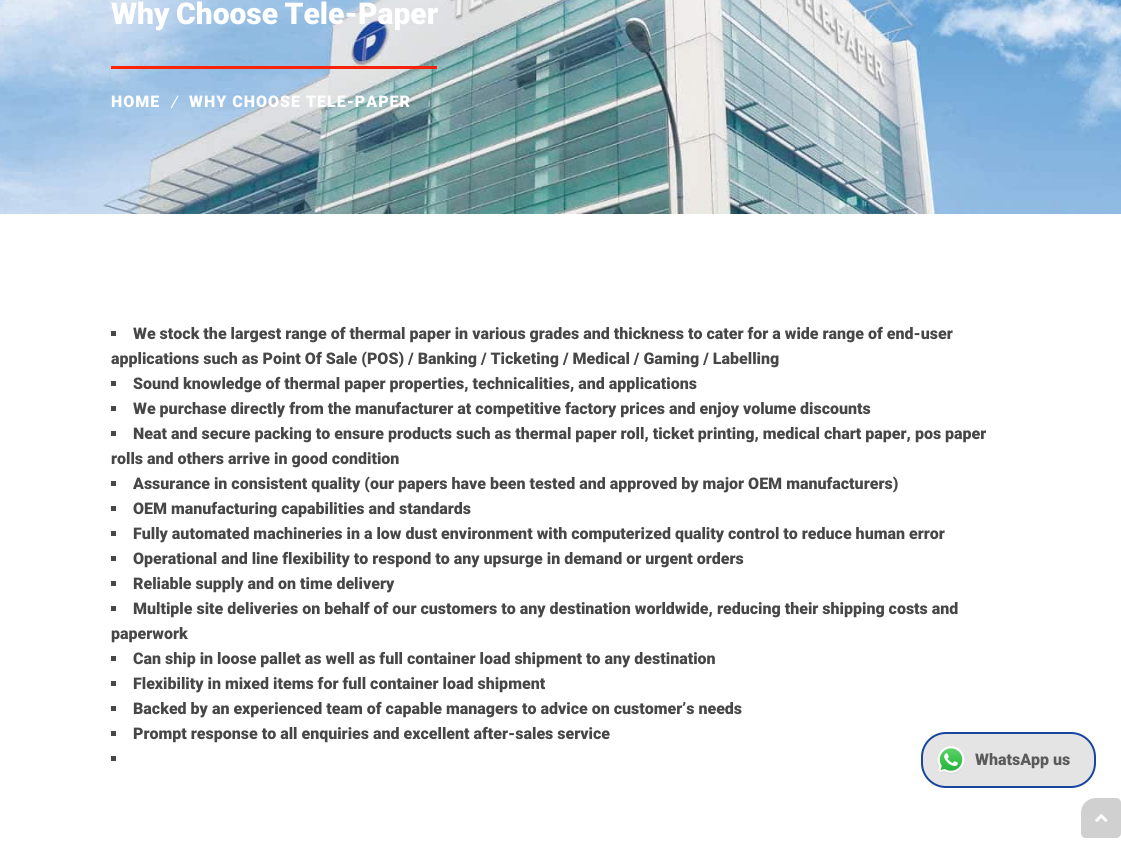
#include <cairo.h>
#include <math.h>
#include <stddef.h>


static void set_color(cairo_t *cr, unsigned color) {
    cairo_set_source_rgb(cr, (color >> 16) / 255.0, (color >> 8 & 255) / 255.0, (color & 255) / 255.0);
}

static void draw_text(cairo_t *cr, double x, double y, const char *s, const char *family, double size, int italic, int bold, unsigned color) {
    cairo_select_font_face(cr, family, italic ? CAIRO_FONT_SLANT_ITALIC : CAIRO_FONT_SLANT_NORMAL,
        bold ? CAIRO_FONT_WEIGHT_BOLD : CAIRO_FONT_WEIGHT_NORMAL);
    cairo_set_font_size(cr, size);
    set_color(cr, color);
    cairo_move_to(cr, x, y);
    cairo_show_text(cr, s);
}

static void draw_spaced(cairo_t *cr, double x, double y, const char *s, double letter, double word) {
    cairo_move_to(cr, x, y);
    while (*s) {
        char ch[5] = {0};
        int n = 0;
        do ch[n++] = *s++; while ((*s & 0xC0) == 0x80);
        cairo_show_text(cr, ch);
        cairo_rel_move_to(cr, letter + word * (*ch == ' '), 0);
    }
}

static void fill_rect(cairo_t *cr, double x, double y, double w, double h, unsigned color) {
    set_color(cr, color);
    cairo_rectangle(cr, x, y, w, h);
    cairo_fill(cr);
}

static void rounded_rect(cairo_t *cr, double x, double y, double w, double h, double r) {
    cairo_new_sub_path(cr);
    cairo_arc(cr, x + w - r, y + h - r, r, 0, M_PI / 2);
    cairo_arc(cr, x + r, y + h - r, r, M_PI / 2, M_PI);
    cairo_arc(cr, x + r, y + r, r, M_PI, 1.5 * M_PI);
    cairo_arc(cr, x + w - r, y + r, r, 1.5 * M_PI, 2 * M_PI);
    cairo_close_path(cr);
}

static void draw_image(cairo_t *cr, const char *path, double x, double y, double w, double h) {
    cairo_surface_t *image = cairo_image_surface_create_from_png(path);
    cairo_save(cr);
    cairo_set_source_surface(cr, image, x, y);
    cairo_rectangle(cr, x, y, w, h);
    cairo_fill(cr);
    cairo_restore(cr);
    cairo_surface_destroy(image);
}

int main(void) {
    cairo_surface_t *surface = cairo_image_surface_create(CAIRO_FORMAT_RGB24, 1121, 858);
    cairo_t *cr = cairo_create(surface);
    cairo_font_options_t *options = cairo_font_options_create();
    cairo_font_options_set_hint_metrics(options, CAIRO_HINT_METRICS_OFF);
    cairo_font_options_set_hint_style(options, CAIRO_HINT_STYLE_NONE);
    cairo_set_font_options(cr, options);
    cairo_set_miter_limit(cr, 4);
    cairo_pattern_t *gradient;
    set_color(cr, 0xFFFFFF);
    cairo_paint(cr);
    draw_image(cr, "assets/img1.png", 0, 0, 1121, 214);
    cairo_select_font_face(cr, "Roboto Black", CAIRO_FONT_SLANT_NORMAL, CAIRO_FONT_WEIGHT_NORMAL);
    cairo_set_font_size(cr, 30);
    set_color(cr, 0xFFFFFF);
    draw_spaced(cr, 111, 24, "Why Choose Tele-Paper", 0, -1);
    gradient = cairo_pattern_create_linear(1016, -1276, 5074, 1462);
    cairo_pattern_add_color_stop_rgba(gradient, 0, 1, 0.141, 0, 1);
    cairo_pattern_add_color_stop_rgba(gradient, 0.12, 0.91, 0.114, 0.114, 1);
    cairo_pattern_add_color_stop_rgba(gradient, 0.25, 0.91, 0.718, 0.114, 1);
    cairo_pattern_add_color_stop_rgba(gradient, 0.38, 0.89, 0.91, 0.114, 1);
    cairo_pattern_add_color_stop_rgba(gradient, 0.5, 0.114, 0.91, 0.251, 1);
    cairo_pattern_add_color_stop_rgba(gradient, 0.62, 0.114, 0.867, 0.91, 1);
    cairo_pattern_add_color_stop_rgba(gradient, 0.75, 0.169, 0.114, 0.91, 1);
    cairo_pattern_add_color_stop_rgba(gradient, 0.88, 0.867, 0, 0.953, 1);
    cairo_pattern_add_color_stop_rgba(gradient, 1, 0.867, 0, 0.953, 1);
    cairo_set_source(cr, gradient);
    cairo_pattern_destroy(gradient);
    cairo_rectangle(cr, 111, 66, 326, 3);
    cairo_fill(cr);
    cairo_set_font_size(cr, 16);
    set_color(cr, 0xFFFFFF);
    draw_spaced(cr, 111, 107, "HOME", 1, 0);
    cairo_new_path(cr);
    cairo_move_to(cr, 177.5, 95.5);
    cairo_line_to(cr, 178.5, 96);
    cairo_line_to(cr, 171.5, 108.5);
    cairo_line_to(cr, 170.5, 108);
    cairo_close_path(cr);
    cairo_fill(cr);
    draw_spaced(cr, 189, 107, "WHY CHOOSE TELE-PAPER", 1, 0);
    fill_rect(cr, 111, 331, 5, 5, 0x474747);
    draw_text(cr, 133, 339, "We stock the largest range of thermal paper in various grades and thickness to cater for a wide range of end-user", "Roboto Black", 16, 0, 0, 0x474747);
    draw_text(cr, 111, 364, "applications such as Point Of Sale (POS) / Banking / Ticketing / Medical / Gaming / Labelling", "Roboto Black", 16, 0, 0, 0x474747);
    fill_rect(cr, 111, 381, 5, 5, 0x474747);
    draw_text(cr, 133, 389, "Sound knowledge of thermal paper properties, technicalities, and applications", "Roboto Black", 16, 0, 0, 0x474747);
    fill_rect(cr, 111, 406, 5, 5, 0x474747);
    draw_text(cr, 133, 414, "We purchase directly from the manufacturer at competitive factory prices and enjoy volume discounts", "Roboto Black", 16, 0, 0, 0x474747);
    fill_rect(cr, 111, 431, 5, 5, 0x474747);
    draw_text(cr, 133, 439, "Neat and secure packing to ensure products such as thermal paper roll, ticket printing, medical chart paper, pos paper", "Roboto Black", 16, 0, 0, 0x474747);
    draw_text(cr, 111, 464, "rolls and others arrive in good condition", "Roboto Black", 16, 0, 0, 0x474747);
    fill_rect(cr, 111, 481, 5, 5, 0x474747);
    draw_text(cr, 133, 489, "Assurance in consistent quality (our papers have been tested and approved by major OEM manufacturers)", "Roboto Black", 16, 0, 0, 0x474747);
    fill_rect(cr, 111, 506, 5, 5, 0x474747);
    draw_text(cr, 133, 514, "OEM manufacturing capabilities and standards", "Roboto Black", 16, 0, 0, 0x474747);
    fill_rect(cr, 111, 531, 5, 5, 0x474747);
    draw_text(cr, 133, 539, "Fully automated machineries in a low dust environment with computerized quality control to reduce human error", "Roboto Black", 16, 0, 0, 0x474747);
    fill_rect(cr, 111, 556, 5, 5, 0x474747);
    draw_text(cr, 133, 564, "Operational and line flexibility to respond to any upsurge in demand or urgent orders", "Roboto Black", 16, 0, 0, 0x474747);
    fill_rect(cr, 111, 581, 5, 5, 0x474747);
    draw_text(cr, 133, 589, "Reliable supply and on time delivery", "Roboto Black", 16, 0, 0, 0x474747);
    fill_rect(cr, 111, 606, 5, 5, 0x474747);
    draw_text(cr, 133, 614, "Multiple site deliveries on behalf of our customers to any destination worldwide, reducing their shipping costs and", "Roboto Black", 16, 0, 0, 0x474747);
    draw_text(cr, 111, 639, "paperwork", "Roboto Black", 16, 0, 0, 0x474747);
    fill_rect(cr, 111, 656, 5, 5, 0x474747);
    draw_text(cr, 133, 664, "Can ship in loose pallet as well as full container load shipment to any destination", "Roboto Black", 16, 0, 0, 0x474747);
    fill_rect(cr, 111, 681, 5, 5, 0x474747);
    draw_text(cr, 133, 689, "Flexibility in mixed items for full container load shipment", "Roboto Black", 16, 0, 0, 0x474747);
    fill_rect(cr, 111, 706, 5, 5, 0x474747);
    draw_text(cr, 133, 714, "Backed by an experienced team of capable managers to advice on customer’s needs", "Roboto Black", 16, 0, 0, 0x474747);
    fill_rect(cr, 111, 731, 5, 5, 0x474747);
    draw_text(cr, 133, 739, "Prompt response to all enquiries and excellent after-sales service", "Roboto Black", 16, 0, 0, 0x474747);
    fill_rect(cr, 111, 756, 5, 5, 0x474747);
    set_color(cr, 0xE4E4E4);
    rounded_rect(cr, 922, 733, 173, 54, 24);
    cairo_fill_preserve(cr);
    set_color(cr, 0x17469E);
    cairo_stroke(cr);
    draw_image(cr, "assets/img2.png", 937, 746, 28, 28);
    draw_text(cr, 975, 765, "WhatsApp us", "Roboto Black", 16, 0, 0, 0x5B5B5B);
    set_color(cr, 0xD0D0D0);
    cairo_new_path(cr);
    cairo_move_to(cr, 1096, 798);
    cairo_line_to(cr, 1116, 798);
    cairo_curve_to(cr, 1119, 798, 1121, 800, 1121, 803);
    cairo_line_to(cr, 1121, 833);
    cairo_curve_to(cr, 1121, 836, 1119, 838, 1116, 838);
    cairo_line_to(cr, 1086, 838);
    cairo_curve_to(cr, 1083, 838, 1081, 836, 1081, 833);
    cairo_line_to(cr, 1081, 813);
    cairo_curve_to(cr, 1081, 804.5, 1087.5, 798, 1096, 798);
    cairo_close_path(cr);
    cairo_fill(cr);
    draw_image(cr, "assets/img3.png", 1095, 814, 13, 8);
    cairo_surface_write_to_png(surface, "output.png");
    cairo_font_options_destroy(options);
    cairo_destroy(cr);
    cairo_surface_destroy(surface);
    return 0;
}
